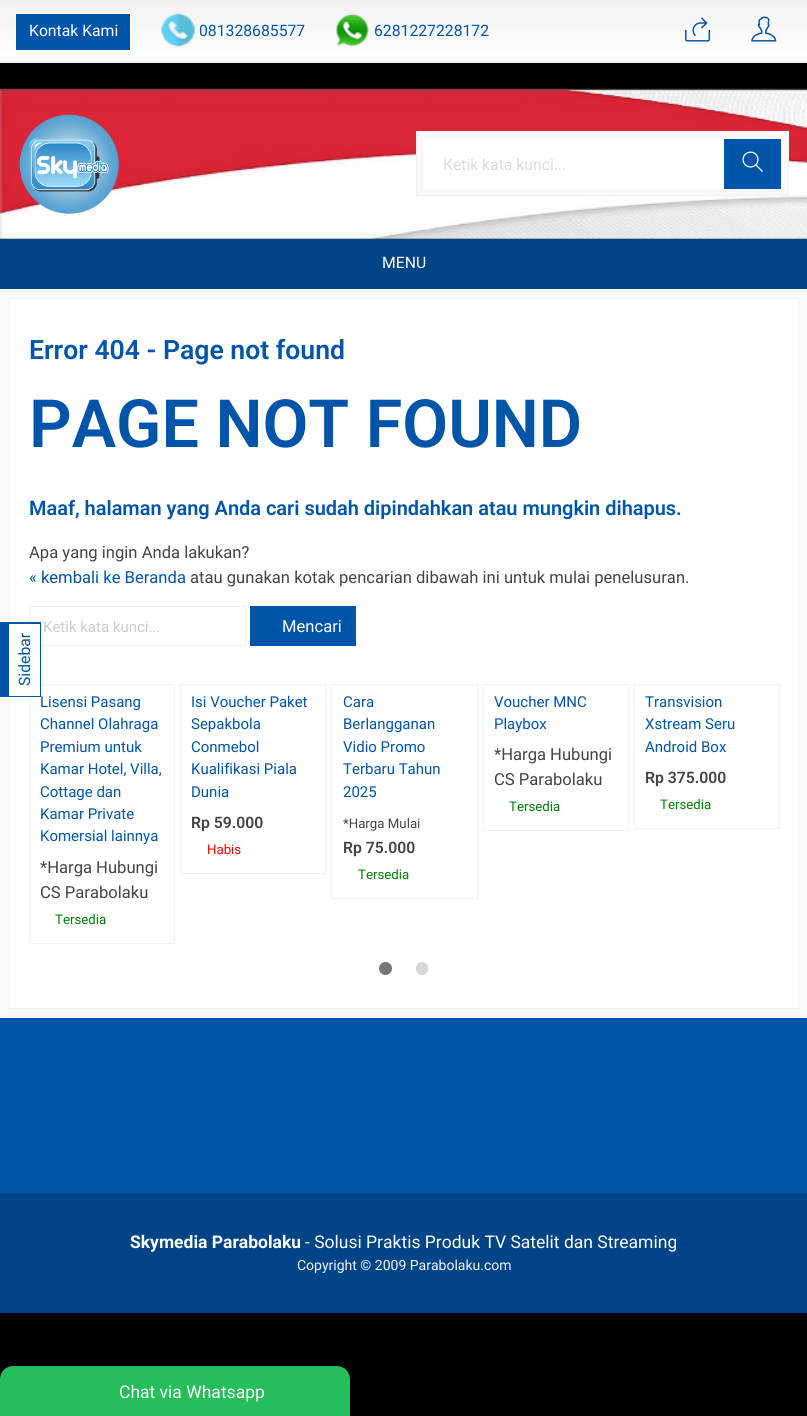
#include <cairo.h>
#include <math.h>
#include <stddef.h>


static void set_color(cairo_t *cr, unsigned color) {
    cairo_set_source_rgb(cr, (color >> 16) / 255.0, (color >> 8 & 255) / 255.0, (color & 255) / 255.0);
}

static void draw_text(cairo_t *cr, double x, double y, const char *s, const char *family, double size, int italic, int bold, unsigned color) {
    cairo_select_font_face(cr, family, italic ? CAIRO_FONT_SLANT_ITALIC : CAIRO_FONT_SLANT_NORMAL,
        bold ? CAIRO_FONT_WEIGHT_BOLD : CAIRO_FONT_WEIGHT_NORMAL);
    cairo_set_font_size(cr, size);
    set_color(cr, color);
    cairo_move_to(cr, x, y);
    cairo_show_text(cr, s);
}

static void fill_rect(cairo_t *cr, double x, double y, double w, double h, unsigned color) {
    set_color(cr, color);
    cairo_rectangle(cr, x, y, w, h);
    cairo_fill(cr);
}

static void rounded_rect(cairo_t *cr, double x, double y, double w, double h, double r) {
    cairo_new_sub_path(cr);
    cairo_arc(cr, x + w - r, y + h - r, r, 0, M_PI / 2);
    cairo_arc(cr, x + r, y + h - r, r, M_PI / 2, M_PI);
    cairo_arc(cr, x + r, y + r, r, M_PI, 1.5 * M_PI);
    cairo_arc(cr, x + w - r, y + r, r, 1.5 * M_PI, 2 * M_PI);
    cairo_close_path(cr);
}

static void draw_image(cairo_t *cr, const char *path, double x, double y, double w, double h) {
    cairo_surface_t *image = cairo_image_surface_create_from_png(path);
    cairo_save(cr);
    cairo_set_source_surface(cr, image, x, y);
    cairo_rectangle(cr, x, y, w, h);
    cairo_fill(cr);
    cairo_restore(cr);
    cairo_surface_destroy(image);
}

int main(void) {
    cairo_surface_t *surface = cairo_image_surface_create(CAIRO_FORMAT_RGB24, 807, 1416);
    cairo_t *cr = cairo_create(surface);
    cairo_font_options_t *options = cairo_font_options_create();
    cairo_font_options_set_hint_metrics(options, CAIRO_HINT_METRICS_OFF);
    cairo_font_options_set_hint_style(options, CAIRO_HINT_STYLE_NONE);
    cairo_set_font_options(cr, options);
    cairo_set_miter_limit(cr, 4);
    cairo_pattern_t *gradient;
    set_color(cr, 0x000000);
    cairo_paint(cr);
    gradient = cairo_pattern_create_linear(404, 0, 404, 61);
    cairo_pattern_add_color_stop_rgba(gradient, 0, 0.949, 0.949, 0.949, 1);
    cairo_pattern_add_color_stop_rgba(gradient, 1, 1, 1, 1, 1);
    cairo_set_source(cr, gradient);
    cairo_pattern_destroy(gradient);
    cairo_rectangle(cr, 0, 0, 807, 61);
    cairo_fill(cr);
    gradient = cairo_pattern_create_linear(404, 61, 404, 123);
    cairo_pattern_add_color_stop_rgba(gradient, 0, 0.949, 0.949, 0.949, 1);
    cairo_pattern_add_color_stop_rgba(gradient, 1, 1, 1, 1, 1);
    cairo_set_source(cr, gradient);
    cairo_pattern_destroy(gradient);
    cairo_rectangle(cr, 0, 61, 807, 2);
    cairo_fill(cr);
    fill_rect(cr, 16, 14, 114, 36, 0x0055AA);
    draw_text(cr, 29, 36, "Kontak Kami", "Roboto", 15.75, 0, 0, 0xFFFFFF);
    draw_image(cr, "assets/img1.png", 161, 13, 35, 34);
    draw_text(cr, 199, 36, "081328685577", "Roboto", 15.75, 0, 0, 0x0055AA);
    draw_image(cr, "assets/img2.png", 336, 13, 33, 34);
    draw_text(cr, 374, 36, "6281227228172", "Roboto", 15.75, 0, 0, 0x0055AA);
    draw_image(cr, "assets/img3.png", 685, 17, 26, 25);
    draw_image(cr, "assets/img4.png", 751, 16, 26, 26);
    draw_image(cr, "assets/img5.png", 0, 88, 807, 151);
    draw_image(cr, "assets/img6.png", 19, 114, 100, 100);
    set_color(cr, 0xF9F9F9);
    cairo_rectangle(cr, 416.5, 131.5, 372, 64);
    cairo_fill_preserve(cr);
    set_color(cr, 0xF2F2F2);
    cairo_set_line_width(cr, 1);
    cairo_stroke(cr);
    fill_rect(cr, 424, 139, 300, 50, 0xFFFFFF);
    draw_text(cr, 443, 170, "Ketik kata kunci...", "Roboto", 15.75, 0, 0, 0xDDDDDD);
    fill_rect(cr, 724, 139, 57, 50, 0x0055AA);
    draw_image(cr, "assets/img7.png", 742, 151, 21, 21);
    fill_rect(cr, 0, 239, 807, 50, 0x004488);
    draw_text(cr, 382, 268, "MENU", "Roboto", 15.75, 0, 0, 0xFFFFFF);
    fill_rect(cr, 0, 289, 807, 729, 0xF9F9F9);
    set_color(cr, 0xFFFFFF);
    cairo_rectangle(cr, 9.5, 298.5, 789, 710);
    cairo_fill_preserve(cr);
    set_color(cr, 0xF2F2F2);
    cairo_stroke(cr);
    cairo_rectangle(cr, 29.5, 606.5, 216, 39);
    cairo_stroke(cr);
    cairo_rectangle(cr, 29.5, 684.5, 145, 259);
    cairo_stroke(cr);
    fill_rect(cr, 9, 624, 31, 72, 0xFFFFFF);
    fill_rect(cr, 0, 624, 9, 72, 0x0055AA);
    fill_rect(cr, 0, 622, 41, 2, 0x0055AA);
    fill_rect(cr, 40, 622, 1, 75, 0x0055AA);
    fill_rect(cr, 0, 696, 41, 1, 0x0055AA);
    cairo_save(cr);
    cairo_translate(cr, 30, 686);
    cairo_rotate(cr, -90 * M_PI / 180);
    draw_text(cr, 0, 0, "Sidebar", "Roboto", 15.75, 0, 0, 0x0055AA);
    cairo_restore(cr);
    draw_text(cr, 29, 359, "Error 404 - Page not found", "Roboto SemiBold", 26.6, 0, 0, 0x0055AA);
    draw_text(cr, 29, 447, "PAGE NOT FOUND", "Roboto SemiBold", 66.5, 0, 0, 0x0055AA);
    draw_text(cr, 29, 515, "Maaf, halaman yang Anda cari sudah dipindahkan atau mungkin dihapus.", "Roboto SemiBold", 19.95, 0, 0, 0x0055AA);
    draw_text(cr, 29, 558, "Apa yang ingin Anda lakukan?", "Roboto", 16.6, 0, 0, 0x444444);
    draw_text(cr, 29, 583, "« kembali ke Beranda", "Roboto", 16.6, 0, 0, 0x0055AA);
    draw_text(cr, 190, 583, "atau gunakan kotak pencarian dibawah ini untuk mulai penelusuran.", "Roboto", 16.6, 0, 0, 0x444444);
    draw_text(cr, 43, 632, "Ketik kata kunci...", "Roboto", 15, 0, 0, 0xCCCCCC);
    fill_rect(cr, 250, 606, 106, 40, 0x0055AA);
    draw_text(cr, 282, 632, "Mencari", "Roboto", 16.6, 0, 0, 0xFFFFFF);
    draw_text(cr, 40, 707, "Lisensi Pasang", "Roboto", 15, 0, 0, 0x0055AA);
    draw_text(cr, 40, 729, "Channel Olahraga", "Roboto", 15, 0, 0, 0x0055AA);
    draw_text(cr, 40, 752, "Premium untuk", "Roboto", 15, 0, 0, 0x0055AA);
    draw_text(cr, 40, 774, "Kamar Hotel, Villa,", "Roboto", 15, 0, 0, 0x0055AA);
    draw_text(cr, 40, 797, "Cottage dan", "Roboto", 15, 0, 0, 0x0055AA);
    draw_text(cr, 40, 819, "Kamar Private", "Roboto", 15, 0, 0, 0x0055AA);
    draw_text(cr, 40, 841, "Komersial lainnya", "Roboto", 15, 0, 0, 0x0055AA);
    draw_text(cr, 40, 873, "*Harga Hubungi", "Roboto", 16.6, 0, 0, 0x444444);
    draw_text(cr, 40, 898, "CS Parabolaku", "Roboto", 16.6, 0, 0, 0x444444);
    draw_text(cr, 55, 924, "Tersedia", "Roboto", 13.25, 0, 0, 0x008000);
    cairo_rectangle(cr, 180.5, 684.5, 145, 189);
    set_color(cr, 0xF2F2F2);
    cairo_stroke(cr);
    draw_text(cr, 191, 707, "Isi Voucher Paket", "Roboto", 15, 0, 0, 0x0055AA);
    draw_text(cr, 191, 729, "Sepakbola", "Roboto", 15, 0, 0, 0x0055AA);
    draw_text(cr, 191, 752, "Conmebol", "Roboto", 15, 0, 0, 0x0055AA);
    draw_text(cr, 191, 774, "Kualifikasi Piala", "Roboto", 15, 0, 0, 0x0055AA);
    draw_text(cr, 191, 797, "Dunia", "Roboto", 15, 0, 0, 0x0055AA);
    draw_text(cr, 191, 828, "Rp 59.000", "Roboto SemiBold", 15.75, 0, 0, 0x444444);
    draw_text(cr, 207, 854, "Habis", "Roboto", 13.25, 0, 0, 0xFF0000);
    cairo_rectangle(cr, 331.5, 684.5, 146, 214);
    set_color(cr, 0xF2F2F2);
    cairo_stroke(cr);
    draw_text(cr, 343, 707, "Cara", "Roboto", 15, 0, 0, 0x0055AA);
    draw_text(cr, 343, 729, "Berlangganan", "Roboto", 15, 0, 0, 0x0055AA);
    draw_text(cr, 343, 752, "Vidio Promo", "Roboto", 15, 0, 0, 0x0055AA);
    draw_text(cr, 343, 774, "Terbaru Tahun", "Roboto", 15, 0, 0, 0x0055AA);
    draw_text(cr, 343, 797, "2025", "Roboto", 15, 0, 0, 0x0055AA);
    draw_text(cr, 343, 828, "*Harga Mulai", "Roboto", 13.25, 0, 0, 0x444444);
    draw_text(cr, 343, 853, "Rp 75.000", "Roboto SemiBold", 15.75, 0, 0, 0x444444);
    draw_text(cr, 358, 879, "Tersedia", "Roboto", 13.25, 0, 0, 0x008000);
    cairo_rectangle(cr, 483.5, 684.5, 145, 146);
    set_color(cr, 0xF2F2F2);
    cairo_stroke(cr);
    draw_text(cr, 494, 707, "Voucher MNC", "Roboto", 15, 0, 0, 0x0055AA);
    draw_text(cr, 494, 729, "Playbox", "Roboto", 15, 0, 0, 0x0055AA);
    draw_text(cr, 494, 760, "*Harga Hubungi", "Roboto", 16.6, 0, 0, 0x444444);
    draw_text(cr, 494, 785, "CS Parabolaku", "Roboto", 16.6, 0, 0, 0x444444);
    draw_text(cr, 509, 811, "Tersedia", "Roboto", 13.25, 0, 0, 0x008000);
    cairo_rectangle(cr, 634.5, 684.5, 145, 144);
    set_color(cr, 0xF2F2F2);
    cairo_stroke(cr);
    draw_text(cr, 645, 707, "Transvision", "Roboto", 15, 0, 0, 0x0055AA);
    draw_text(cr, 645, 729, "Xstream Seru", "Roboto", 15, 0, 0, 0x0055AA);
    draw_text(cr, 645, 752, "Android Box", "Roboto", 15, 0, 0, 0x0055AA);
    draw_text(cr, 645, 783, "Rp 375.000", "Roboto SemiBold", 15.75, 0, 0, 0x444444);
    draw_text(cr, 660, 809, "Tersedia", "Roboto", 13.25, 0, 0, 0x008000);
    set_color(cr, 0x777777);
    cairo_new_path(cr);
    cairo_arc(cr, 385.5, 968.5, 8, 0, 2 * M_PI);
    cairo_fill_preserve(cr);
    set_color(cr, 0xFFFFFF);
    cairo_set_line_width(cr, 3);
    cairo_stroke(cr);
    set_color(cr, 0xD6D6D6);
    rounded_rect(cr, 414.5, 960.5, 15, 16, 7.5);
    cairo_fill_preserve(cr);
    set_color(cr, 0xFFFFFF);
    cairo_stroke(cr);
    fill_rect(cr, 0, 1018, 807, 175, 0x0055AA);
    fill_rect(cr, 0, 1193, 807, 120, 0x004488);
    draw_text(cr, 130, 1248, "Skymedia Parabolaku", "Roboto", 17.5, 0, 1, 0xFFFFFF);
    draw_text(cr, 305, 1248, "- Solusi Praktis Produk TV Satelit dan Streaming", "Roboto", 17.5, 0, 0, 0xFFFFFF);
    draw_text(cr, 297, 1270, "Copyright © 2009 Parabolaku.com", "Roboto", 14, 0, 0, 0xF5F5F5);
    set_color(cr, 0x24BE5B);
    cairo_new_path(cr);
    cairo_move_to(cr, 13, 1366);
    cairo_line_to(cr, 337, 1366);
    cairo_curve_to(cr, 344, 1366, 350, 1372, 350, 1379);
    cairo_line_to(cr, 350, 1416);
    cairo_line_to(cr, 0, 1416);
    cairo_line_to(cr, 0, 1379);
    cairo_curve_to(cr, 0, 1372, 6, 1366, 13, 1366);
    cairo_close_path(cr);
    cairo_fill(cr);
    draw_text(cr, 119, 1398, "Chat via Whatsapp", "Roboto", 17.5, 0, 0, 0xFFFFFF);
    cairo_surface_write_to_png(surface, "output.png");
    cairo_font_options_destroy(options);
    cairo_destroy(cr);
    cairo_surface_destroy(surface);
    return 0;
}
